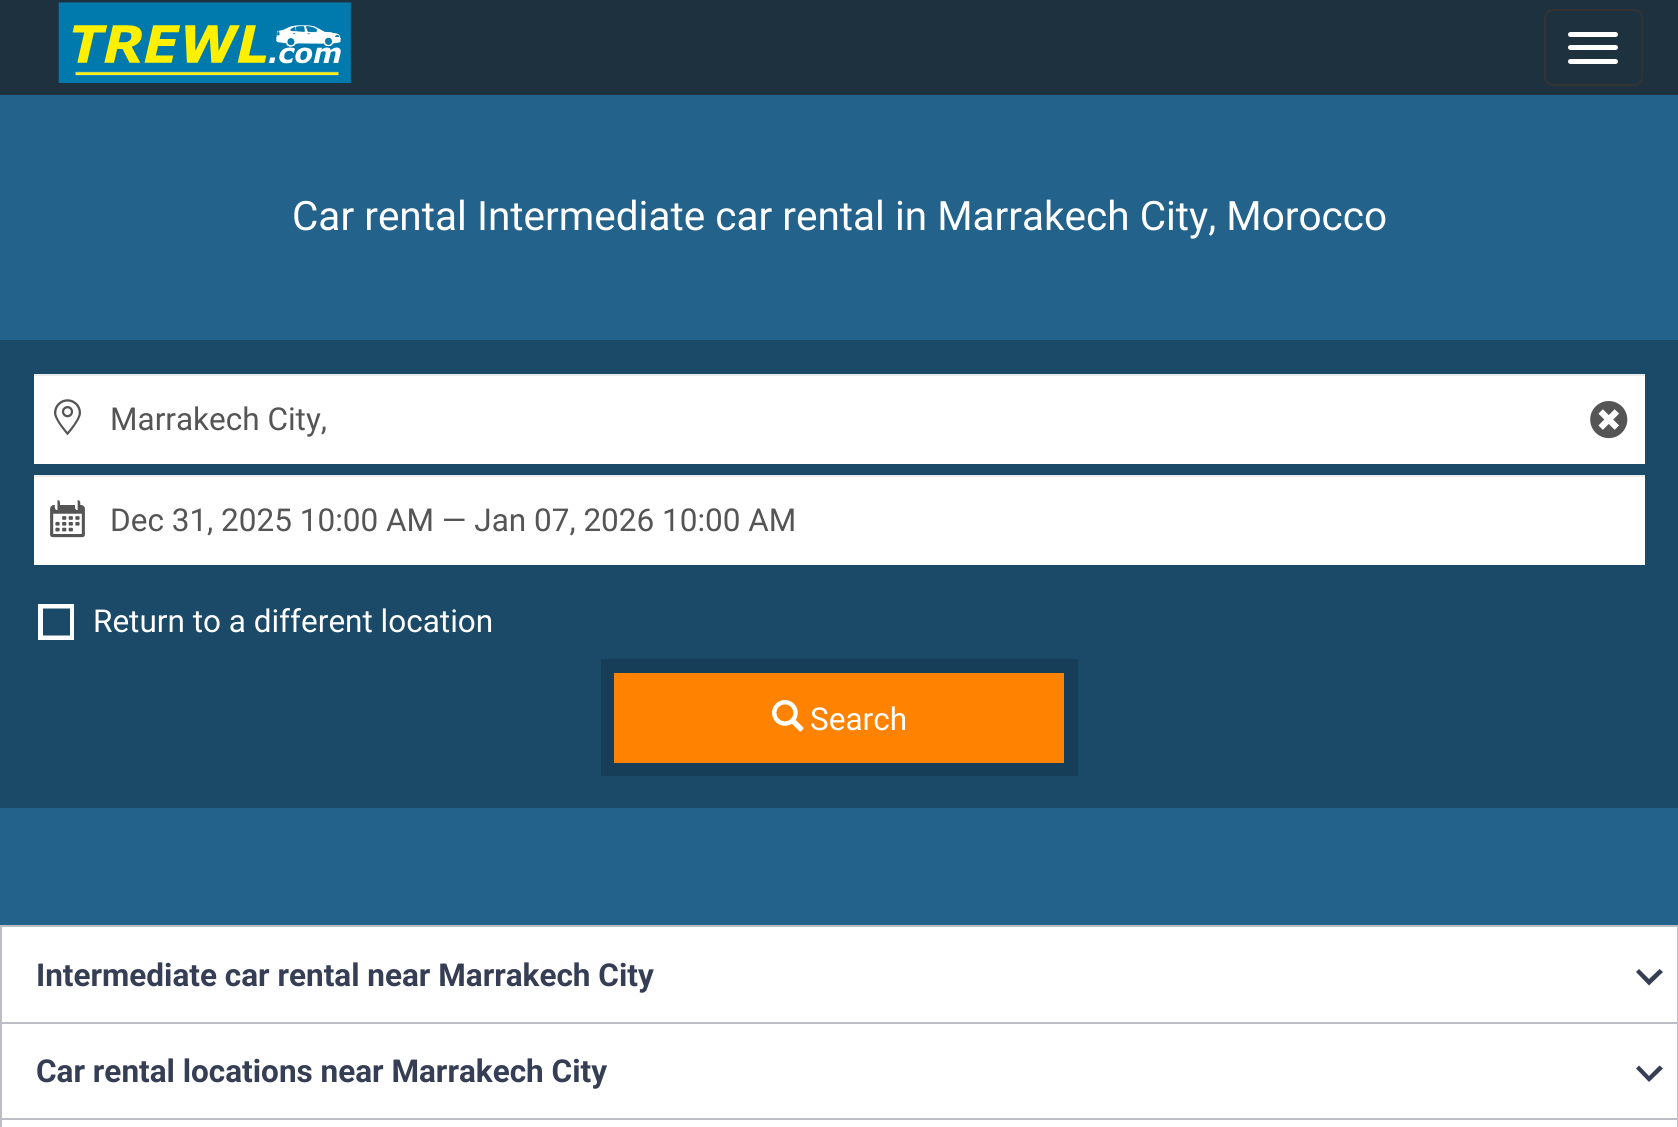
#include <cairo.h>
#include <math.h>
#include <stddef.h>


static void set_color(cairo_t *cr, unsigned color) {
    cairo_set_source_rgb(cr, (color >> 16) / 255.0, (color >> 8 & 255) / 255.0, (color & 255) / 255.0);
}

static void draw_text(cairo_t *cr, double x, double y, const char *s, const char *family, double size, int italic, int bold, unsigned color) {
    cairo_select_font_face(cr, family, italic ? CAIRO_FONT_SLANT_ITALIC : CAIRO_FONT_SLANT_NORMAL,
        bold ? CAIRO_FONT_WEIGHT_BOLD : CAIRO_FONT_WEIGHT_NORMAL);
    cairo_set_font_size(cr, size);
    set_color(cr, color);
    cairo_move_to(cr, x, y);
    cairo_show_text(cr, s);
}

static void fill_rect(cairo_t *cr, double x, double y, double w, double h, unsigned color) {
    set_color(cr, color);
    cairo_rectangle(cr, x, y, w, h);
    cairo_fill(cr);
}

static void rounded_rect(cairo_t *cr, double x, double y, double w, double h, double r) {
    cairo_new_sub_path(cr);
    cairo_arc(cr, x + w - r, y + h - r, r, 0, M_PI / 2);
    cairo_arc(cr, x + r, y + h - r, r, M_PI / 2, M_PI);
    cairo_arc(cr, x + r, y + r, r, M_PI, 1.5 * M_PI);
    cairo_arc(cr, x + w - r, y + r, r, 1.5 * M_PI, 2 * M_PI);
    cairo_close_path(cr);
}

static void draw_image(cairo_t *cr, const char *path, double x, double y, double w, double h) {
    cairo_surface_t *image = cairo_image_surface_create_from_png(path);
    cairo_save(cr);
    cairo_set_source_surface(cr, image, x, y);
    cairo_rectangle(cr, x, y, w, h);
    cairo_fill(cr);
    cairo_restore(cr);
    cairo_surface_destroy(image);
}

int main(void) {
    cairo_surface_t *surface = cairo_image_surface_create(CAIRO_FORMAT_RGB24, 1678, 1127);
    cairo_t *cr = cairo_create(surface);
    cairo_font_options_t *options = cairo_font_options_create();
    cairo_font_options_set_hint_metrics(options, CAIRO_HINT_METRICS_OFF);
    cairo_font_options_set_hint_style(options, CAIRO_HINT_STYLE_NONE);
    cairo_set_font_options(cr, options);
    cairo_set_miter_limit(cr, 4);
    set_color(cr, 0x23628B);
    cairo_paint(cr);
    fill_rect(cr, 0, 0, 1678, 95, 0x1D313E);
    draw_image(cr, "assets/img1.png", 58, 2, 293, 81);
    rounded_rect(cr, 1545, 10, 97, 75, 8);
    set_color(cr, 0x333333);
    cairo_stroke(cr);
    set_color(cr, 0xFFFFFF);
    rounded_rect(cr, 1568, 32, 50, 5, 2.5);
    cairo_fill(cr);
    rounded_rect(cr, 1568, 45, 50, 5, 2.5);
    cairo_fill(cr);
    rounded_rect(cr, 1568, 59, 50, 5, 2.5);
    cairo_fill(cr);
    draw_text(cr, 292, 230, "Car rental Intermediate car rental in Marrakech City, Morocco", "Roboto", 40.5, 0, 0, 0xFFFFFF);
    fill_rect(cr, 0, 340, 1678, 468, 0x1B4968);
    fill_rect(cr, 34, 376, 1611, 88, 0xFFFFFF);
    draw_image(cr, "assets/img2.png", 54, 399, 27, 37);
    fill_rect(cr, 34, 374, 1611, 2, 0xECECEC);
    draw_text(cr, 110, 430, "Marrakech City,", "Roboto", 31.5, 0, 0, 0x555555);
    draw_image(cr, "assets/img3.png", 1590, 401, 38, 38);
    fill_rect(cr, 34, 477, 1611, 88, 0xFFFFFF);
    draw_image(cr, "assets/img4.png", 50, 500, 35, 38);
    fill_rect(cr, 34, 475, 1611, 2, 0xECECEC);
    draw_text(cr, 110, 531, "Dec 31, 2025 10:00 AM — Jan 07, 2026 10:00 AM", "Roboto", 31.5, 0, 0, 0x555555);
    set_color(cr, 0xFFFFFF);
    cairo_new_path(cr);
    cairo_move_to(cr, 38, 604);
    cairo_line_to(cr, 38, 640);
    cairo_line_to(cr, 74, 640);
    cairo_line_to(cr, 74, 604);
    cairo_close_path(cr);
    cairo_move_to(cr, 70, 635.5);
    cairo_line_to(cr, 43, 635.5);
    cairo_line_to(cr, 43, 608.5);
    cairo_line_to(cr, 70, 608.5);
    cairo_close_path(cr);
    cairo_fill(cr);
    draw_text(cr, 93, 632, "Return to a different location", "Roboto", 31.5, 0, 0, 0xFFFFFF);
    cairo_rectangle(cr, 608, 666, 463, 103);
    set_color(cr, 0x173E58);
    cairo_set_line_width(cr, 14);
    cairo_stroke(cr);
    fill_rect(cr, 614, 673, 450, 90, 0xFF8200);
    draw_image(cr, "assets/img5.png", 772, 700, 32, 32);
    draw_text(cr, 810, 730, "Search", "Roboto", 31.5, 0, 0, 0xFFFFFF);
    cairo_rectangle(cr, 1, 926, 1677, 97);
    cairo_fill_preserve(cr);
    set_color(cr, 0xBBBFC3);
    cairo_set_line_width(cr, 2);
    cairo_stroke(cr);
    draw_text(cr, 36, 986, "Intermediate car rental near Marrakech City", "Roboto", 31.5, 0, 1, 0x353E54);
    cairo_new_path(cr);
    cairo_move_to(cr, 1639, 969);
    cairo_line_to(cr, 1649, 979);
    cairo_line_to(cr, 1659.5, 969);
    cairo_line_to(cr, 1663, 972);
    cairo_line_to(cr, 1649, 985.5);
    cairo_line_to(cr, 1636, 972);
    cairo_close_path(cr);
    cairo_fill(cr);
    fill_rect(cr, 2, 1024, 1675, 94, 0xFFFFFF);
    cairo_rectangle(cr, 1, 1023, 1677, 97);
    set_color(cr, 0xBBBFC3);
    cairo_stroke(cr);
    draw_text(cr, 36, 1082, "Car rental locations near Marrakech City", "Roboto", 31.5, 0, 1, 0x353E54);
    cairo_new_path(cr);
    cairo_move_to(cr, 1639, 1065.5);
    cairo_line_to(cr, 1649, 1076);
    cairo_line_to(cr, 1659.5, 1065.5);
    cairo_line_to(cr, 1663, 1068.5);
    cairo_line_to(cr, 1649, 1082);
    cairo_line_to(cr, 1636, 1068.5);
    cairo_close_path(cr);
    cairo_fill(cr);
    set_color(cr, 0xFFFFFF);
    cairo_rectangle(cr, 1, 1119, 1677, 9);
    cairo_fill_preserve(cr);
    set_color(cr, 0xBBBFC3);
    cairo_stroke(cr);
    cairo_surface_write_to_png(surface, "output.png");
    cairo_font_options_destroy(options);
    cairo_destroy(cr);
    cairo_surface_destroy(surface);
    return 0;
}
